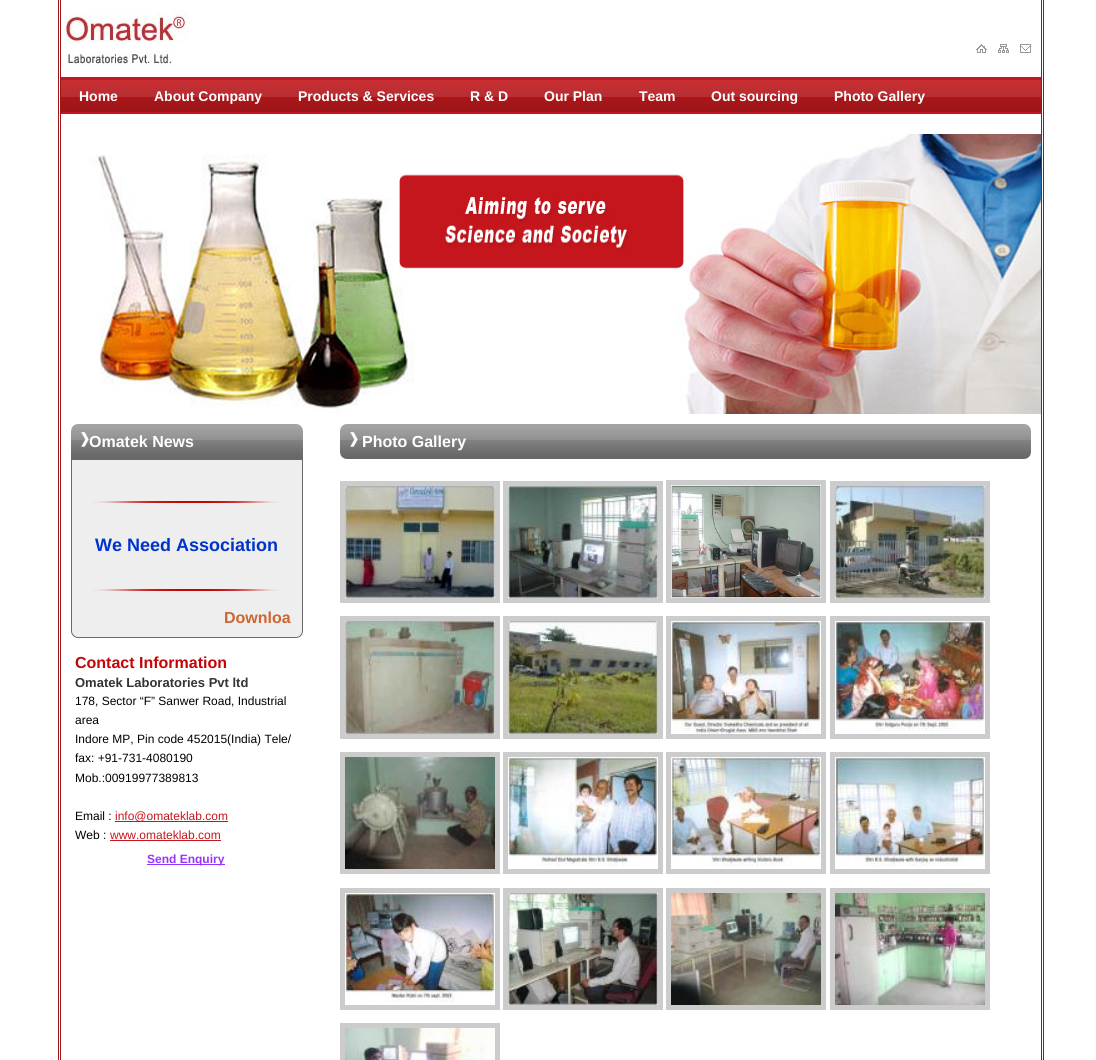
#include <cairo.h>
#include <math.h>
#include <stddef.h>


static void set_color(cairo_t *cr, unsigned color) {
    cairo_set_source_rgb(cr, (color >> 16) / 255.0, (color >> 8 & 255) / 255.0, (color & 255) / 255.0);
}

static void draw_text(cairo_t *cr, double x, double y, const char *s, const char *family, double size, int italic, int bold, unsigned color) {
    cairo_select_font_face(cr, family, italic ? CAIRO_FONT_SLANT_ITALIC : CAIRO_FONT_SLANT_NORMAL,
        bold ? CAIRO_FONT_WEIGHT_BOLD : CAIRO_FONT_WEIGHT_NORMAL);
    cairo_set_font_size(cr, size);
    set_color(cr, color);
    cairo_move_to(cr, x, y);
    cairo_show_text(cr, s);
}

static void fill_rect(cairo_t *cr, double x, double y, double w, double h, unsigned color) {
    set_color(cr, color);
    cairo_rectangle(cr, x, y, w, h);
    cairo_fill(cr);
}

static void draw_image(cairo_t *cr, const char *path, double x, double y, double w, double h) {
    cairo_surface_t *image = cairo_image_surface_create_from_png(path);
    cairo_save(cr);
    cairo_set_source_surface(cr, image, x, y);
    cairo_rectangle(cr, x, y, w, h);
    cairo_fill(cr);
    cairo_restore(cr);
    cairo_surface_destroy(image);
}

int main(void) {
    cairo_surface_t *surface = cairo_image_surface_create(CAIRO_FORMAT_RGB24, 1096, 1060);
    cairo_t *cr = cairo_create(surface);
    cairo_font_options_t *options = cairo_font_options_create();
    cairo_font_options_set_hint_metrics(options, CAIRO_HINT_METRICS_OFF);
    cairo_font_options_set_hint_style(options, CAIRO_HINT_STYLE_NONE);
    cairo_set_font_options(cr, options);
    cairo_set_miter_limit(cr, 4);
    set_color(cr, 0xFFFFFF);
    cairo_paint(cr);
    fill_rect(cr, 1041, 0, 1, 1060, 0x9E1618);
    fill_rect(cr, 1043, 0, 1, 1060, 0x9E1618);
    fill_rect(cr, 58, 0, 1, 1060, 0x9E1618);
    fill_rect(cr, 60, 0, 1, 1060, 0x9E1618);
    draw_image(cr, "assets/img1.png", 61, 10, 128, 56);
    draw_image(cr, "assets/img2.png", 976, 44, 11, 9);
    draw_image(cr, "assets/img3.png", 998, 44, 11, 9);
    draw_image(cr, "assets/img4.png", 1020, 44, 11, 9);
    draw_image(cr, "assets/img5.png", 61, 77, 980, 37);
    draw_text(cr, 79, 101, "Home", "Liberation Sans", 14, 0, 1, 0xFFFFFF);
    draw_text(cr, 154, 101, "About Company", "Liberation Sans", 14, 0, 1, 0xFFFFFF);
    draw_text(cr, 298, 101, "Products & Services", "Liberation Sans", 14, 0, 1, 0xFFFFFF);
    draw_text(cr, 470, 101, "R & D", "Liberation Sans", 14, 0, 1, 0xFFFFFF);
    draw_text(cr, 544, 101, "Our Plan", "Liberation Sans", 14, 0, 1, 0xFFFFFF);
    draw_text(cr, 639, 101, "Team", "Liberation Sans", 14, 0, 1, 0xFFFFFF);
    draw_text(cr, 711, 101, "Out sourcing", "Liberation Sans", 14, 0, 1, 0xFFFFFF);
    draw_text(cr, 834, 101, "Photo Gallery", "Liberation Sans", 14, 0, 1, 0xFFFFFF);
    draw_image(cr, "assets/img6.png", 89, 134, 952, 280);
    draw_image(cr, "assets/img7.png", 71, 424, 232, 35);
    draw_image(cr, "assets/img8.png", 81, 432, 8, 15);
    draw_text(cr, 89, 447, "Omatek News", "Liberation Sans", 16, 0, 1, 0xFFFFFF);
    set_color(cr, 0xEEEEEE);
    cairo_new_path(cr);
    cairo_move_to(cr, 71.5, 459.5);
    cairo_line_to(cr, 302.5, 459.5);
    cairo_line_to(cr, 302.5, 631);
    cairo_curve_to(cr, 302.5, 634.5, 299.5, 637.5, 296, 637.5);
    cairo_line_to(cr, 78, 637.5);
    cairo_curve_to(cr, 74.5, 637.5, 71.5, 634.5, 71.5, 631);
    cairo_close_path(cr);
    cairo_fill_preserve(cr);
    set_color(cr, 0x6A6A6A);
    cairo_set_line_width(cr, 1);
    cairo_stroke(cr);
    draw_image(cr, "assets/img9.png", 93, 501, 186, 2);
    draw_text(cr, 95, 551, "We Need Association", "Liberation Sans", 18, 0, 1, 0x0033CC);
    draw_image(cr, "assets/img9.png", 93, 589, 186, 2);
    draw_text(cr, 224, 623, "Downloa", "Liberation Sans", 16, 0, 1, 0xCC6633);
    draw_text(cr, 75, 668, "Contact Information", "Liberation Sans", 16, 0, 1, 0xC30507);
    draw_text(cr, 75, 687, "Omatek Laboratories Pvt ltd", "Liberation Sans", 13, 0, 1, 0x333333);
    draw_text(cr, 75, 705, "178, Sector “F” Sanwer Road, Industrial", "Liberation Sans", 12, 0, 0, 0x000000);
    draw_text(cr, 75, 724, "area", "Liberation Sans", 12, 0, 0, 0x000000);
    draw_text(cr, 75, 743, "Indore MP, Pin code 452015(India) Tele/", "Liberation Sans", 12, 0, 0, 0x000000);
    draw_text(cr, 75, 762, "fax: +91-731-4080190", "Liberation Sans", 12, 0, 0, 0x000000);
    draw_text(cr, 75, 782, "Mob.:00919977389813", "Liberation Sans", 12, 0, 0, 0x000000);
    draw_text(cr, 75, 820, "Email :", "Liberation Sans", 12, 0, 0, 0x000000);
    fill_rect(cr, 115, 821, 113, 1, 0xC5161D);
    draw_text(cr, 115, 820, "info@omateklab.com", "Liberation Sans", 12, 0, 0, 0xC5161D);
    draw_text(cr, 75, 839, "Web :", "Liberation Sans", 12, 0, 0, 0x000000);
    draw_text(cr, 110, 839, "www.omateklab.com", "Liberation Sans", 12, 0, 0, 0xC5161D);
    fill_rect(cr, 110, 840, 111, 1, 0xC5161D);
    fill_rect(cr, 147, 864, 78, 1, 0x9933FF);
    draw_text(cr, 147, 863, "Send Enquiry", "Liberation Sans", 12, 0, 1, 0x9933FF);
    draw_image(cr, "assets/img10.png", 340, 424, 691, 35);
    draw_image(cr, "assets/img8.png", 350, 432, 8, 15);
    draw_text(cr, 362, 447, "Photo Gallery", "Liberation Sans", 16, 0, 1, 0xFFFFFF);
    cairo_rectangle(cr, 342.5, 483.5, 155, 117);
    set_color(cr, 0xCCCCCC);
    cairo_set_line_width(cr, 5);
    cairo_stroke(cr);
    cairo_rectangle(cr, 505.5, 483.5, 155, 117);
    cairo_stroke(cr);
    cairo_rectangle(cr, 668.5, 482.5, 155, 118);
    cairo_stroke(cr);
    cairo_rectangle(cr, 832.5, 483.5, 155, 117);
    cairo_stroke(cr);
    draw_image(cr, "assets/img11.png", 345, 486, 150, 112);
    draw_image(cr, "assets/img12.png", 508, 486, 150, 112);
    draw_image(cr, "assets/img13.png", 671, 485, 150, 113);
    draw_image(cr, "assets/img14.png", 835, 486, 150, 112);
    cairo_rectangle(cr, 342.5, 618.5, 155, 118);
    cairo_stroke(cr);
    cairo_rectangle(cr, 505.5, 618.5, 155, 118);
    cairo_stroke(cr);
    cairo_rectangle(cr, 668.5, 618.5, 155, 118);
    cairo_stroke(cr);
    cairo_rectangle(cr, 832.5, 618.5, 155, 118);
    cairo_stroke(cr);
    draw_image(cr, "assets/img15.png", 345, 621, 150, 113);
    draw_image(cr, "assets/img16.png", 508, 621, 150, 113);
    draw_image(cr, "assets/img17.png", 671, 621, 150, 113);
    draw_image(cr, "assets/img18.png", 835, 621, 150, 111);
    cairo_rectangle(cr, 342.5, 754.5, 155, 117);
    cairo_stroke(cr);
    cairo_rectangle(cr, 505.5, 754.5, 155, 117);
    cairo_stroke(cr);
    cairo_rectangle(cr, 668.5, 754.5, 155, 117);
    cairo_stroke(cr);
    cairo_rectangle(cr, 832.5, 754.5, 155, 117);
    cairo_stroke(cr);
    draw_image(cr, "assets/img19.png", 345, 757, 150, 112);
    draw_image(cr, "assets/img20.png", 508, 757, 150, 110);
    draw_image(cr, "assets/img21.png", 671, 757, 150, 110);
    draw_image(cr, "assets/img22.png", 835, 757, 150, 110);
    cairo_rectangle(cr, 342.5, 890.5, 155, 117);
    cairo_stroke(cr);
    cairo_rectangle(cr, 505.5, 890.5, 155, 117);
    cairo_stroke(cr);
    cairo_rectangle(cr, 668.5, 890.5, 155, 117);
    cairo_stroke(cr);
    cairo_rectangle(cr, 832.5, 890.5, 155, 117);
    cairo_stroke(cr);
    draw_image(cr, "assets/img23.png", 345, 893, 150, 110);
    draw_image(cr, "assets/img24.png", 508, 893, 150, 112);
    draw_image(cr, "assets/img25.png", 671, 893, 150, 112);
    draw_image(cr, "assets/img26.png", 835, 893, 150, 112);
    cairo_rectangle(cr, 342.5, 1025.5, 155, 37);
    cairo_stroke(cr);
    draw_image(cr, "assets/img27.png", 345, 1028, 150, 32);
    cairo_surface_write_to_png(surface, "output.png");
    cairo_font_options_destroy(options);
    cairo_destroy(cr);
    cairo_surface_destroy(surface);
    return 0;
}
